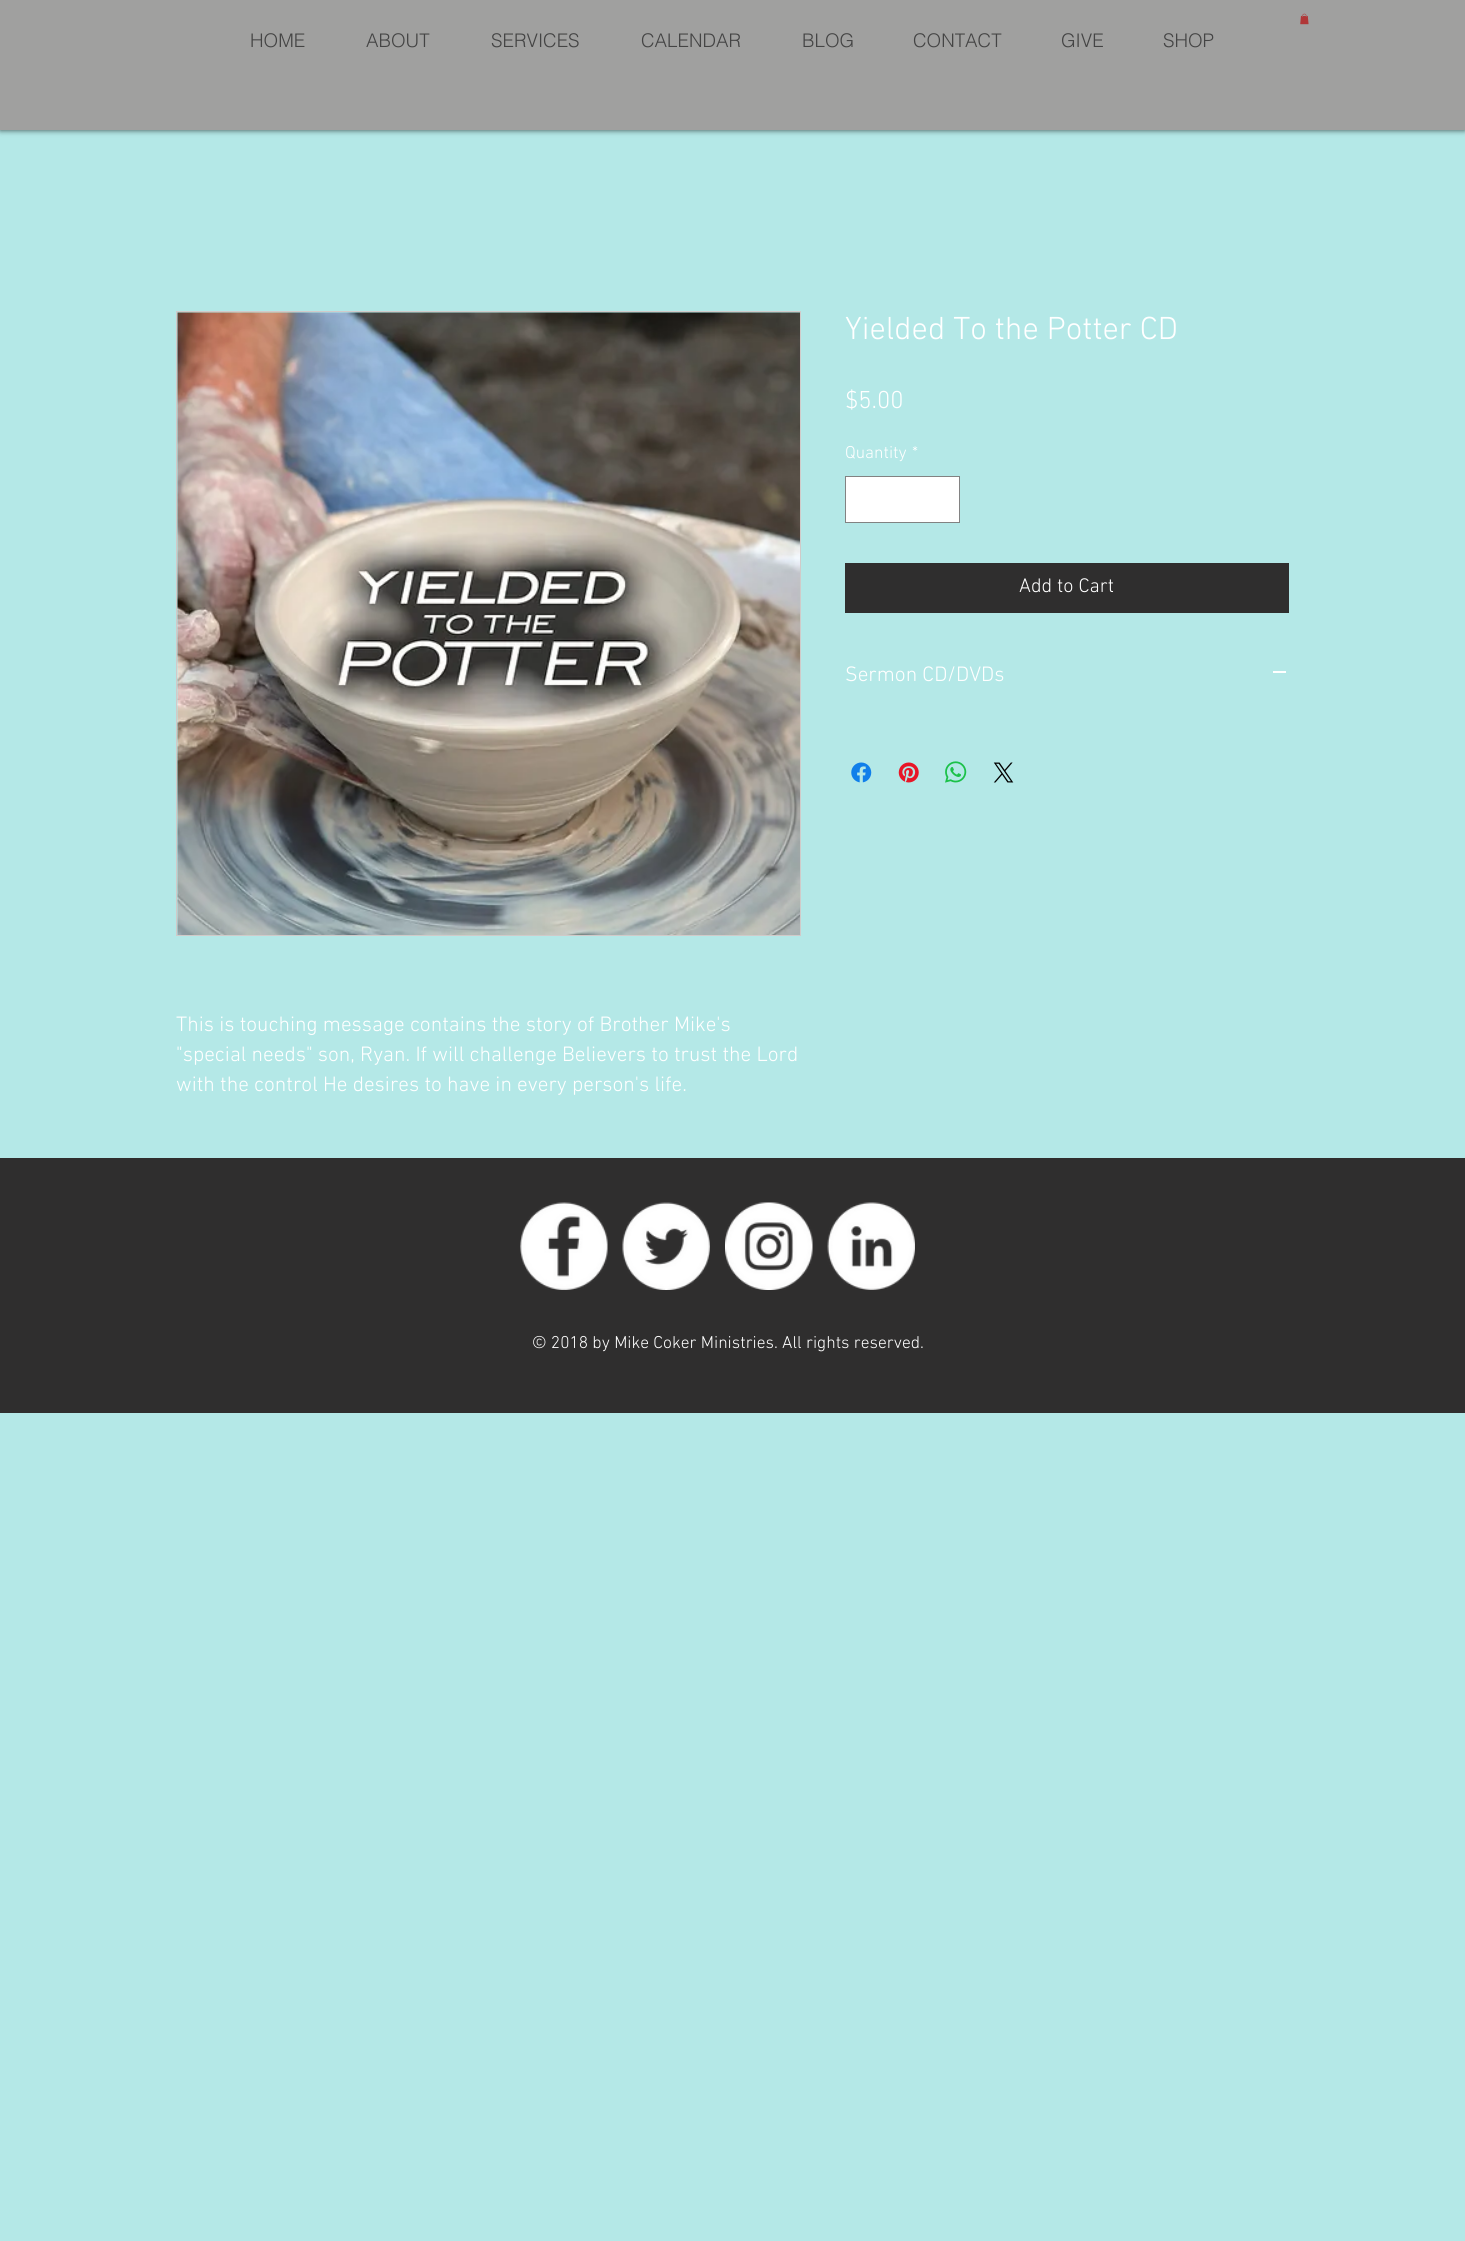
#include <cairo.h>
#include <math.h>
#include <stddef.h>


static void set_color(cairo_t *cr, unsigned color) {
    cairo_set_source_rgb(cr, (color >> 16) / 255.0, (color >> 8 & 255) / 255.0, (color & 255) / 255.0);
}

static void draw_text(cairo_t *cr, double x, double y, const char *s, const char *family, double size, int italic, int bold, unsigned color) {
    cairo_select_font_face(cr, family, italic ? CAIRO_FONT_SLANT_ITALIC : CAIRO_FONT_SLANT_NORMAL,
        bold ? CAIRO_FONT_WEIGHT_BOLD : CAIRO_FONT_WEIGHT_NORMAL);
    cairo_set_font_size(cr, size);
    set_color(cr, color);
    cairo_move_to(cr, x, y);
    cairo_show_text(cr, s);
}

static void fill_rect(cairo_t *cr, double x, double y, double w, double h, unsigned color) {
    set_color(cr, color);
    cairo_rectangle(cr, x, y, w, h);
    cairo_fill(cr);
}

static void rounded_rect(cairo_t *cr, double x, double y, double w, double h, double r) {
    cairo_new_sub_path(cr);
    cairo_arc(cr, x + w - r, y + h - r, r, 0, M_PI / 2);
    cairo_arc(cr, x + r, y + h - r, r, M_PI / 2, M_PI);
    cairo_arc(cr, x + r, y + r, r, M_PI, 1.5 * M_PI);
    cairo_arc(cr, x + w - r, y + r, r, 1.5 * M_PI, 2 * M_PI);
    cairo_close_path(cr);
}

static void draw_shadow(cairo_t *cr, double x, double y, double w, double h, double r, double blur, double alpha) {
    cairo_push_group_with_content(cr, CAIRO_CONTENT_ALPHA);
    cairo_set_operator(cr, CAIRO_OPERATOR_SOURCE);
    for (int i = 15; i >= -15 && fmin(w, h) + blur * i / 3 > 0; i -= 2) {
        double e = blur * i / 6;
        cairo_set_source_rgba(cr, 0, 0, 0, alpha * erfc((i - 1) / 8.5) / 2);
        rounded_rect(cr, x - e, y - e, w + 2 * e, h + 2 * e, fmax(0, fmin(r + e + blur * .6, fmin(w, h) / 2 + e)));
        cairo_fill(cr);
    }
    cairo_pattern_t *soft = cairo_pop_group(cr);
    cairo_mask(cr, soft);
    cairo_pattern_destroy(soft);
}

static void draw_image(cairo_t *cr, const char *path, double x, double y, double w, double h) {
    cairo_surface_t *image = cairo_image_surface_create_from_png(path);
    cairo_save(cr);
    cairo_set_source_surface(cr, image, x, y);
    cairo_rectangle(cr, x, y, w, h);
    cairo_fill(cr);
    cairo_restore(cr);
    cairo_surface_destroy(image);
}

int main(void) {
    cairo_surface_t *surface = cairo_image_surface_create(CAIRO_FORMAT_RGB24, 1465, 2241);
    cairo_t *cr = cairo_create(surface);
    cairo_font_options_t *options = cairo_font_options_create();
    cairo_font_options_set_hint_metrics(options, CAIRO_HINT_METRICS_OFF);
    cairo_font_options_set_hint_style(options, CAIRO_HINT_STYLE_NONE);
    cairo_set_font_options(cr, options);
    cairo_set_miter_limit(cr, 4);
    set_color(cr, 0xB4E8E7);
    cairo_paint(cr);
    set_color(cr, 0x000000);
    draw_shadow(cr, 0, 0, 1465, 130, 0, 3, 0.7);
    fill_rect(cr, 0, 0, 1465, 130, 0xA0A09F);
    draw_image(cr, "assets/img1.png", 1300, 13, 9, 12);
    draw_text(cr, 250, 47, "HOME", "helvetica Light", 18.75, 0, 0, 0x444444);
    draw_text(cr, 366, 47, "ABOUT", "helvetica Light", 18.75, 0, 0, 0x444444);
    draw_text(cr, 491, 47, "SERVICES", "helvetica Light", 18.75, 0, 0, 0x444444);
    draw_text(cr, 641, 47, "CALENDAR", "helvetica Light", 18.75, 0, 0, 0x444444);
    draw_text(cr, 802, 47, "BLOG", "helvetica Light", 18.75, 0, 0, 0x444444);
    draw_text(cr, 913, 47, "CONTACT", "helvetica Light", 18.75, 0, 0, 0x444444);
    draw_text(cr, 1061, 47, "GIVE", "helvetica Light", 18.75, 0, 0, 0x444444);
    draw_text(cr, 1163, 47, "SHOP", "helvetica Light", 18.75, 0, 0, 0x444444);
    draw_text(cr, 845, 339, "Yielded To the Potter CD", "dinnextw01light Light", 32.5, 0, 0, 0xFFFFFF);
    draw_text(cr, 845, 408, "$5.00", "dinnextw01light Light", 25, 0, 0, 0xFFFFFF);
    draw_text(cr, 845, 458, "Quantity", "dinnextw01light Light", 17.5, 0, 0, 0xFFFFFF);
    draw_text(cr, 912, 458, "*", "dinnextw01light Light", 17.5, 0, 0, 0xFFFFFF);
    cairo_rectangle(cr, 845.5, 476.5, 114, 46);
    cairo_fill_preserve(cr);
    set_color(cr, 0x828282);
    cairo_set_line_width(cr, 1);
    cairo_stroke(cr);
    fill_rect(cr, 845, 563, 444, 50, 0x2F2E2E);
    draw_text(cr, 1019, 592, "Add to Cart", "dinnextw01light Light", 20, 0, 0, 0xFFFFFF);
    draw_text(cr, 845, 681, "Sermon CD/DVDs", "dinnextw01light Light", 21.25, 0, 0, 0xFFFFFF);
    fill_rect(cr, 1273, 671, 13, 2, 0xFFFFFF);
    draw_image(cr, "assets/img2.png", 851, 762, 21, 21);
    draw_image(cr, "assets/img3.png", 898, 762, 21, 21);
    draw_image(cr, "assets/img4.png", 945, 761, 22, 22);
    draw_image(cr, "assets/img5.png", 993, 762, 21, 21);
    cairo_rectangle(cr, 176.5, 311.5, 624, 624);
    set_color(cr, 0xD1CAC9);
    cairo_stroke(cr);
    draw_image(cr, "assets/img6.png", 177, 312, 623, 623);
    draw_text(cr, 176, 1031, "This is touching message contains the story of Brother Mike's", "dinnextw01light Light", 21.25, 0, 0, 0xFFFFFF);
    draw_text(cr, 176, 1061, "\"special needs\" son, Ryan. If will challenge Believers to trust the Lord", "dinnextw01light Light", 21.25, 0, 0, 0xFFFFFF);
    draw_text(cr, 176, 1091, "with the control He desires to have in every person's life.", "dinnextw01light Light", 21.25, 0, 0, 0xFFFFFF);
    fill_rect(cr, 0, 1158, 1465, 255, 0x2F2E2E);
    draw_image(cr, "assets/img7.png", 520, 1202, 88, 88);
    draw_image(cr, "assets/img8.png", 622, 1202, 88, 88);
    draw_image(cr, "assets/img9.png", 725, 1202, 88, 88);
    draw_image(cr, "assets/img10.png", 827, 1202, 88, 88);
    draw_text(cr, 532, 1348, "© 2018 by Mike Coker Ministries. All rights reserved.", "dinnextw01light Light", 17.5, 0, 0, 0xFFFFFF);
    cairo_surface_write_to_png(surface, "output.png");
    cairo_font_options_destroy(options);
    cairo_destroy(cr);
    cairo_surface_destroy(surface);
    return 0;
}
